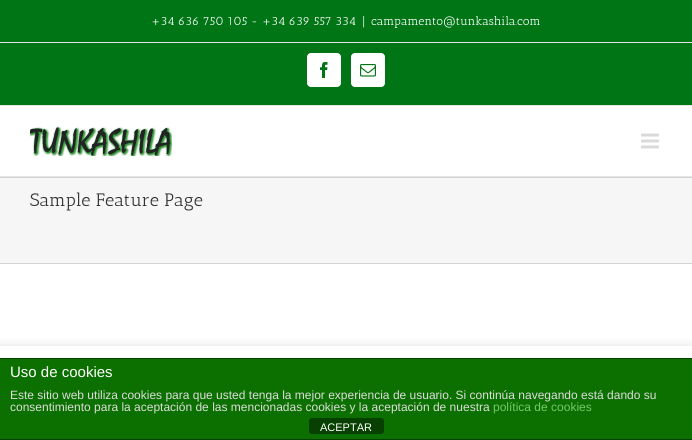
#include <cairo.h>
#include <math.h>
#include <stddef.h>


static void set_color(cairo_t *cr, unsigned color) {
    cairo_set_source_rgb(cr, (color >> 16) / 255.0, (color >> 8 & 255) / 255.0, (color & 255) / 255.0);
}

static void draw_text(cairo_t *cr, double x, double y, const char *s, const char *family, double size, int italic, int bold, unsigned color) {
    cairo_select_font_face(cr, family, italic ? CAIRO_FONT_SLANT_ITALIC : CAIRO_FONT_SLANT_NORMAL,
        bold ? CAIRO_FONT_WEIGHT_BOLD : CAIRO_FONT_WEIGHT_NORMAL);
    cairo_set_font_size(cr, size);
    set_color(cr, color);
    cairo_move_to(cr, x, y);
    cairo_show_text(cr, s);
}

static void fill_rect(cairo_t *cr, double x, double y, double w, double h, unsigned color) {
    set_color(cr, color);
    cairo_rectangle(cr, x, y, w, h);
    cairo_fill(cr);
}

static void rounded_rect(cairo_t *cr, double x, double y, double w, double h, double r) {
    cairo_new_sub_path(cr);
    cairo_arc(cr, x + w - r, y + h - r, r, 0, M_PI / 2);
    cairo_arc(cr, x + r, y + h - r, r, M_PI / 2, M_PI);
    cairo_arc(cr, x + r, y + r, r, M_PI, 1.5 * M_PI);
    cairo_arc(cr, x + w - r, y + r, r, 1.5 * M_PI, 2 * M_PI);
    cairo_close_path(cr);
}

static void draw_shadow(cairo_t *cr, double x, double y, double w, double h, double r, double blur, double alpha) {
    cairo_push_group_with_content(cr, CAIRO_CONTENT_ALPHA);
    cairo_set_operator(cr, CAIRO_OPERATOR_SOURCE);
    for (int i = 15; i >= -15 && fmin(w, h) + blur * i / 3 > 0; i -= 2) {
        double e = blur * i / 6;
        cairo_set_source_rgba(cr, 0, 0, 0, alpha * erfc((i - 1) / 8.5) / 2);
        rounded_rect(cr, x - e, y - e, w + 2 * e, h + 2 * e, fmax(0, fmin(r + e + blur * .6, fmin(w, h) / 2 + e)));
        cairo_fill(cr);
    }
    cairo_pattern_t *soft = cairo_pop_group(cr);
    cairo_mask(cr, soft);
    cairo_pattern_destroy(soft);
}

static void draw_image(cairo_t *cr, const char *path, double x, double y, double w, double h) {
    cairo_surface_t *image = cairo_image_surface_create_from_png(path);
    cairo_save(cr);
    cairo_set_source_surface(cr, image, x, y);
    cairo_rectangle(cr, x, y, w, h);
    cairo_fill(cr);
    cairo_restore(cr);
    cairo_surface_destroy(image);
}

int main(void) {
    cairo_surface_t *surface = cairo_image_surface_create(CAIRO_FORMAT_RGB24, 692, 440);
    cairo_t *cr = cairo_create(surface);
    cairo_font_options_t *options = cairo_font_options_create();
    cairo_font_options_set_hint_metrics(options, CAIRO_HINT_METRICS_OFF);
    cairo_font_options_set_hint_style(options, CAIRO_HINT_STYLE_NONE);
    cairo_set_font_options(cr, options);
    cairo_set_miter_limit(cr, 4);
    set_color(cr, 0xFFFFFF);
    cairo_paint(cr);
    fill_rect(cr, 0, 0, 692, 105, 0x007515);
    fill_rect(cr, 0, 105, 692, 1, 0xE5E5E5);
    fill_rect(cr, 0, 42, 692, 1, 0xE5E5E5);
    draw_text(cr, 151, 25, "+34 636 750 105 - +34 639 557 334", "Antic Slab", 12, 0, 0, 0xFFFFFF);
    draw_text(cr, 362, 25, "|", "Antic Slab", 12, 0, 0, 0xFFFFFF);
    draw_text(cr, 371, 25, "campamento@tunkashila.com", "Antic Slab", 12, 0, 0, 0xFFFFFF);
    rounded_rect(cr, 307.5, 53.5, 33, 33, 3.5);
    cairo_fill_preserve(cr);
    cairo_set_line_width(cr, 1);
    cairo_stroke(cr);
    draw_image(cr, "assets/img1.png", 320, 62, 8, 16);
    rounded_rect(cr, 351.5, 53.5, 33, 33, 3.5);
    cairo_fill_preserve(cr);
    cairo_stroke(cr);
    draw_image(cr, "assets/img2.png", 360, 64, 16, 13);
    fill_rect(cr, 0, 176, 692, 1, 0xE5E5E5);
    draw_image(cr, "assets/img3.png", 30, 126, 142, 30);
    draw_image(cr, "assets/img4.png", 641, 133, 18, 16);
    fill_rect(cr, 0, 178, 692, 85, 0xF6F6F6);
    fill_rect(cr, 0, 177, 692, 1, 0xD2D3D4);
    fill_rect(cr, 0, 263, 692, 1, 0xD2D3D4);
    draw_text(cr, 30, 206, "Sample Feature Page", "Antic Slab", 18, 0, 0, 0x333333);
    cairo_save(cr);
    cairo_rectangle(cr, 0, 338, 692, 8);
    cairo_clip(cr);
    set_color(cr, 0xACABAB);
    draw_shadow(cr, 0, 345, 692, 94, 0, 5, 0.3);
    cairo_restore(cr);
    fill_rect(cr, 0, 359, 692, 80, 0x0B7000);
    fill_rect(cr, 0, 358, 692, 1, 0x064000);
    fill_rect(cr, 0, 439, 692, 1, 0x064000);
    draw_text(cr, 10, 377, "Uso de cookies", "Liberation Sans", 15, 0, 0, 0xFFFFFF);
    draw_text(cr, 10, 399, "Este sitio web utiliza cookies para que usted tenga la mejor experiencia de usuario. Si continúa navegando está dando su", "Liberation Sans", 12, 0, 0, 0xDDDDDD);
    draw_text(cr, 10, 411, "consentimiento para la aceptación de las mencionadas cookies y la aceptación de nuestra", "Liberation Sans", 12, 0, 0, 0xDDDDDD);
    draw_text(cr, 493, 411, "política de cookies", "Liberation Sans", 12, 0, 0, 0x75C76C);
    set_color(cr, 0x074000);
    rounded_rect(cr, 309, 418, 75, 16, 3);
    cairo_fill(cr);
    draw_text(cr, 320, 431, "ACEPTAR", "Liberation Sans", 11, 0, 0, 0xFFFFFF);
    cairo_surface_write_to_png(surface, "output.png");
    cairo_font_options_destroy(options);
    cairo_destroy(cr);
    cairo_surface_destroy(surface);
    return 0;
}
